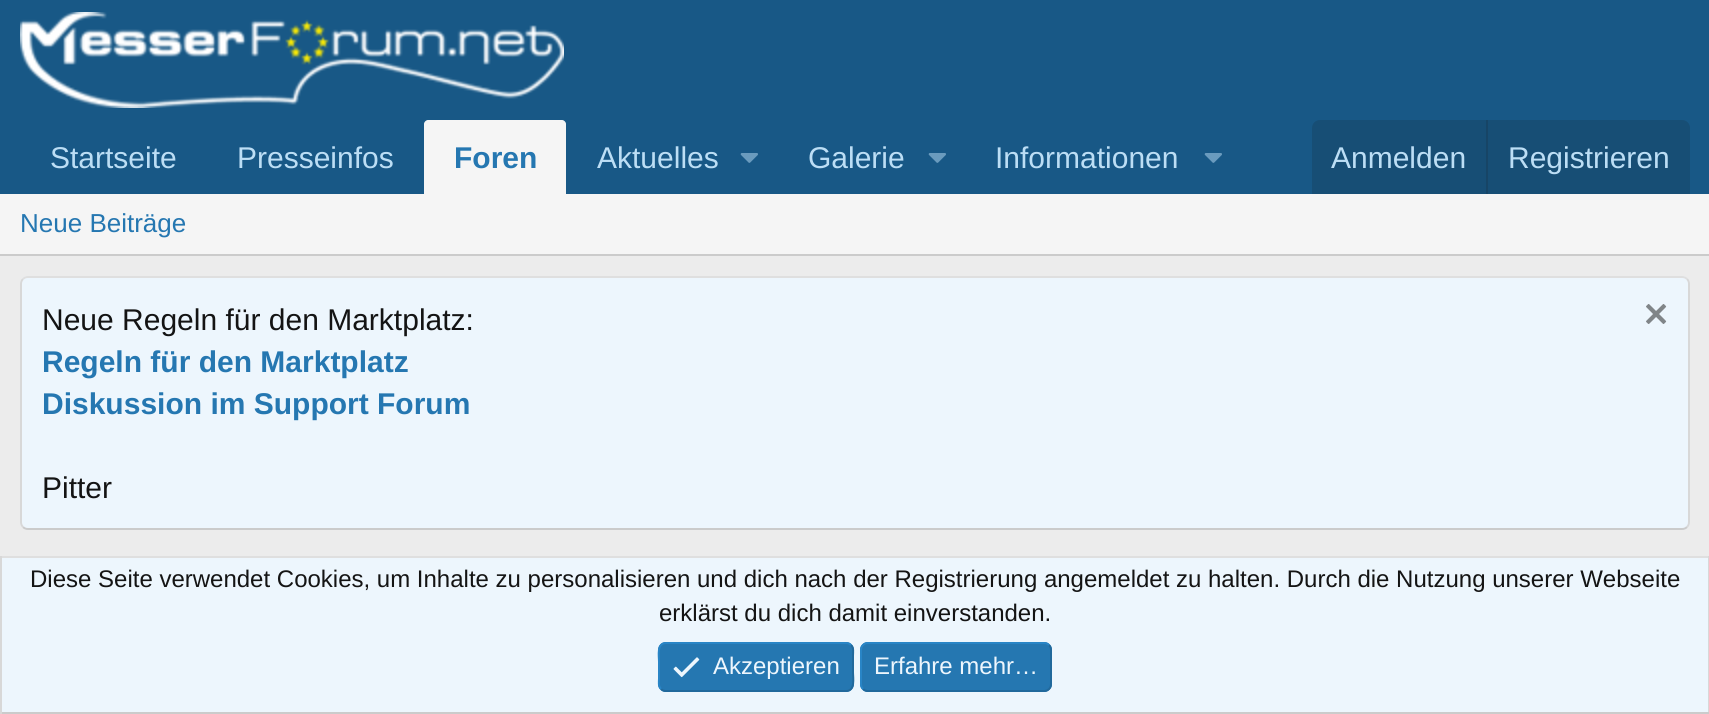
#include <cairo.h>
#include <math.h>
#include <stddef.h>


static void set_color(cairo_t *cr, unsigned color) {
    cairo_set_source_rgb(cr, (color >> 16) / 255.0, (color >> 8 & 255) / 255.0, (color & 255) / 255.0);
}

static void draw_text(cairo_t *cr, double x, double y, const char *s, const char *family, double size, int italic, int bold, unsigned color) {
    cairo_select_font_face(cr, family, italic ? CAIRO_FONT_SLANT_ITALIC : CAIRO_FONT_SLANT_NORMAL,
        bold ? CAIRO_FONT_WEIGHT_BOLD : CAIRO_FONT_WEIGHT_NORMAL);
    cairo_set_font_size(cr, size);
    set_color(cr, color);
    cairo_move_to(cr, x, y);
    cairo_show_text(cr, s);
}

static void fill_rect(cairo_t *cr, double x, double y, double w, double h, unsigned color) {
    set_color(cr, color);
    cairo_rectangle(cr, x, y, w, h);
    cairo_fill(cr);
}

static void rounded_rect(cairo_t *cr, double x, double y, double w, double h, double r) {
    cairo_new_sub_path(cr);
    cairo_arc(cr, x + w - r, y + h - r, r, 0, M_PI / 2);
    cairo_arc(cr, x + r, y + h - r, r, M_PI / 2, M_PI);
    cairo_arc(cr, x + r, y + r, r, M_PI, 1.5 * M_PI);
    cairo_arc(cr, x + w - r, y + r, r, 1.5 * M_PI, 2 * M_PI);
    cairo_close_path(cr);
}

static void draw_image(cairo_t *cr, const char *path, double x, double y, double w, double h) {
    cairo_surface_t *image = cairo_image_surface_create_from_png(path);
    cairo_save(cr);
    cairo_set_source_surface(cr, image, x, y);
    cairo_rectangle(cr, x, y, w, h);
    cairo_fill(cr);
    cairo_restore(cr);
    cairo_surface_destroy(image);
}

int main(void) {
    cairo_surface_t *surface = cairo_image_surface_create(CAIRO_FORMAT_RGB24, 1709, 714);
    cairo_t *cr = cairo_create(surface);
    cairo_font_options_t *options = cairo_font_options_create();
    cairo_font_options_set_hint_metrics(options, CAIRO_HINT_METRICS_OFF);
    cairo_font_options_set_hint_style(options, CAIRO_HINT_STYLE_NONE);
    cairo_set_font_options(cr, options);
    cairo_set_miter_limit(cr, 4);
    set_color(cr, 0xECECEC);
    cairo_paint(cr);
    fill_rect(cr, 0, 0, 1709, 194, 0x185886);
    draw_image(cr, "assets/img1.png", 20, 12, 544, 96);
    draw_text(cr, 50, 168, "Startseite", "Liberation Sans", 30, 0, 0, 0xBCDEF5);
    draw_text(cr, 237, 168, "Presseinfos", "Liberation Sans", 30, 0, 0, 0xBCDEF5);
    set_color(cr, 0xF5F5F5);
    cairo_new_path(cr);
    cairo_move_to(cr, 428, 120);
    cairo_line_to(cr, 562, 120);
    cairo_curve_to(cr, 564, 120, 566, 122, 566, 124);
    cairo_line_to(cr, 566, 194);
    cairo_line_to(cr, 424, 194);
    cairo_line_to(cr, 424, 124);
    cairo_curve_to(cr, 424, 122, 426, 120, 428, 120);
    cairo_close_path(cr);
    cairo_fill(cr);
    draw_text(cr, 454, 168, "Foren", "Liberation Sans", 30, 0, 1, 0x2577B1);
    draw_text(cr, 597, 168, "Aktuelles", "Liberation Sans", 30, 0, 0, 0xBCDEF5);
    draw_image(cr, "assets/img2.png", 740, 153, 18, 10);
    draw_text(cr, 808, 168, "Galerie", "Liberation Sans", 30, 0, 0, 0xBCDEF5);
    draw_image(cr, "assets/img2.png", 928, 153, 18, 10);
    draw_text(cr, 995, 168, "Informationen", "Liberation Sans", 30, 0, 0, 0xBCDEF5);
    draw_image(cr, "assets/img2.png", 1204, 153, 18, 10);
    set_color(cr, 0x174E75);
    cairo_new_path(cr);
    cairo_move_to(cr, 1320, 120);
    cairo_line_to(cr, 1682, 120);
    cairo_curve_to(cr, 1686.5, 120, 1690, 123.5, 1690, 128);
    cairo_line_to(cr, 1690, 194);
    cairo_line_to(cr, 1312, 194);
    cairo_line_to(cr, 1312, 128);
    cairo_curve_to(cr, 1312, 123.5, 1315.5, 120, 1320, 120);
    cairo_close_path(cr);
    cairo_fill(cr);
    draw_text(cr, 1331, 168, "Anmelden", "Liberation Sans", 30, 0, 0, 0xBCDEF5);
    fill_rect(cr, 1486, 120, 2, 74, 0x174566);
    draw_text(cr, 1508, 168, "Registrieren", "Liberation Sans", 30, 0, 0, 0xBCDEF5);
    fill_rect(cr, 0, 194, 1709, 60, 0xF5F5F5);
    fill_rect(cr, 0, 254, 1709, 2, 0xCBCBCB);
    draw_text(cr, 20, 232, "Neue Beiträge", "Liberation Sans", 26, 0, 0, 0x2577B1);
    set_color(cr, 0xEDF6FD);
    rounded_rect(cr, 20, 276, 1670, 254, 8);
    cairo_fill(cr);
    cairo_new_path(cr);
    cairo_move_to(cr, 23, 279);
    cairo_curve_to(cr, 24.5, 277.5, 26, 277, 28, 277);
    cairo_line_to(cr, 1682, 277);
    cairo_curve_to(cr, 1684, 277, 1685.5, 277.5, 1687, 279);
    set_color(cr, 0xDFDFDF);
    cairo_stroke(cr);
    cairo_new_path(cr);
    cairo_move_to(cr, 1687, 279);
    cairo_curve_to(cr, 1688.5, 280.5, 1689, 282, 1689, 284);
    cairo_line_to(cr, 1689, 522);
    cairo_curve_to(cr, 1689, 524, 1688.5, 525.5, 1687, 527);
    set_color(cr, 0xD8D8D8);
    cairo_stroke(cr);
    cairo_new_path(cr);
    cairo_move_to(cr, 1687, 527);
    cairo_curve_to(cr, 1685.5, 528.5, 1684, 529, 1682, 529);
    cairo_line_to(cr, 28, 529);
    cairo_curve_to(cr, 26, 529, 24.5, 528.5, 23, 527);
    set_color(cr, 0xCBCBCB);
    cairo_stroke(cr);
    cairo_new_path(cr);
    cairo_move_to(cr, 23, 527);
    cairo_curve_to(cr, 21.5, 525.5, 21, 524, 21, 522);
    cairo_line_to(cr, 21, 284);
    cairo_curve_to(cr, 21, 282, 21.5, 280.5, 23, 279);
    set_color(cr, 0xD8D8D8);
    cairo_stroke(cr);
    draw_text(cr, 42, 330, "Neue Regeln für den Marktplatz:", "Liberation Sans", 30, 0, 0, 0x141414);
    draw_image(cr, "assets/img3.png", 1646, 304, 21, 20);
    draw_text(cr, 42, 372, "Regeln für den Marktplatz", "Liberation Sans", 30, 0, 1, 0x2577B1);
    draw_text(cr, 42, 414, "Diskussion im Support Forum", "Liberation Sans", 30, 0, 1, 0x2577B1);
    draw_text(cr, 42, 498, "Pitter", "Liberation Sans", 30, 0, 0, 0x141414);
    fill_rect(cr, 2, 558, 1706, 154, 0xEDF6FD);
    fill_rect(cr, 0, 556, 1709, 2, 0xDFDFDF);
    fill_rect(cr, 1708, 556, 1, 158, 0xD8D8D8);
    fill_rect(cr, 0, 712, 1709, 2, 0xCBCBCB);
    fill_rect(cr, 0, 556, 2, 158, 0xD8D8D8);
    draw_text(cr, 30, 587, "Diese Seite verwendet Cookies, um Inhalte zu personalisieren und dich nach der Registrierung angemeldet zu halten. Durch die Nutzung unserer Webseite", "Liberation Sans", 24, 0, 0, 0x141414);
    draw_text(cr, 659, 621, "erklärst du dich damit einverstanden.", "Liberation Sans", 24, 0, 0, 0x141414);
    set_color(cr, 0x2577B1);
    rounded_rect(cr, 658, 642, 196, 50, 8);
    cairo_fill(cr);
    cairo_new_path(cr);
    cairo_move_to(cr, 851, 645);
    cairo_curve_to(cr, 854, 648, 853, 652, 853, 655.5);
    cairo_line_to(cr, 853, 672.5);
    cairo_curve_to(cr, 853, 678, 855.5, 691, 846, 691);
    cairo_line_to(cr, 666, 691);
    cairo_curve_to(cr, 664, 691, 662.5, 690.5, 661, 689);
    set_color(cr, 0x21699C);
    cairo_stroke(cr);
    cairo_new_path(cr);
    cairo_move_to(cr, 661, 689);
    cairo_curve_to(cr, 658, 686, 659, 682, 659, 678.5);
    cairo_line_to(cr, 659, 661.5);
    cairo_curve_to(cr, 659, 656, 656.5, 643, 666, 643);
    cairo_line_to(cr, 846, 643);
    cairo_curve_to(cr, 848, 643, 849.5, 643.5, 851, 645);
    set_color(cr, 0x2985C6);
    cairo_stroke(cr);
    draw_image(cr, "assets/img4.png", 673, 657, 27, 21);
    draw_text(cr, 713, 674, "Akzeptieren", "Liberation Sans", 24, 0, 0, 0xEDF6FD);
    set_color(cr, 0x2577B1);
    rounded_rect(cr, 860, 642, 192, 50, 8);
    cairo_fill(cr);
    cairo_new_path(cr);
    cairo_move_to(cr, 1049, 645);
    cairo_curve_to(cr, 1050.5, 646.5, 1051, 648, 1051, 650);
    cairo_line_to(cr, 1051, 684);
    cairo_curve_to(cr, 1051, 686, 1050.5, 687.5, 1049, 689);
    cairo_curve_to(cr, 1047.5, 690.5, 1046, 691, 1044, 691);
    cairo_line_to(cr, 868, 691);
    cairo_curve_to(cr, 866, 691, 864.5, 690.5, 863, 689);
    set_color(cr, 0x21699C);
    cairo_stroke(cr);
    cairo_new_path(cr);
    cairo_move_to(cr, 863, 689);
    cairo_curve_to(cr, 861.5, 687.5, 861, 686, 861, 684);
    cairo_line_to(cr, 861, 650);
    cairo_curve_to(cr, 861, 648, 861.5, 646.5, 863, 645);
    cairo_curve_to(cr, 864.5, 643.5, 866, 643, 868, 643);
    cairo_line_to(cr, 1044, 643);
    cairo_curve_to(cr, 1046, 643, 1047.5, 643.5, 1049, 645);
    set_color(cr, 0x2985C6);
    cairo_stroke(cr);
    draw_text(cr, 874, 674, "Erfahre mehr…", "Liberation Sans", 24, 0, 0, 0xEDF6FD);
    cairo_surface_write_to_png(surface, "output.png");
    cairo_font_options_destroy(options);
    cairo_destroy(cr);
    cairo_surface_destroy(surface);
    return 0;
}
